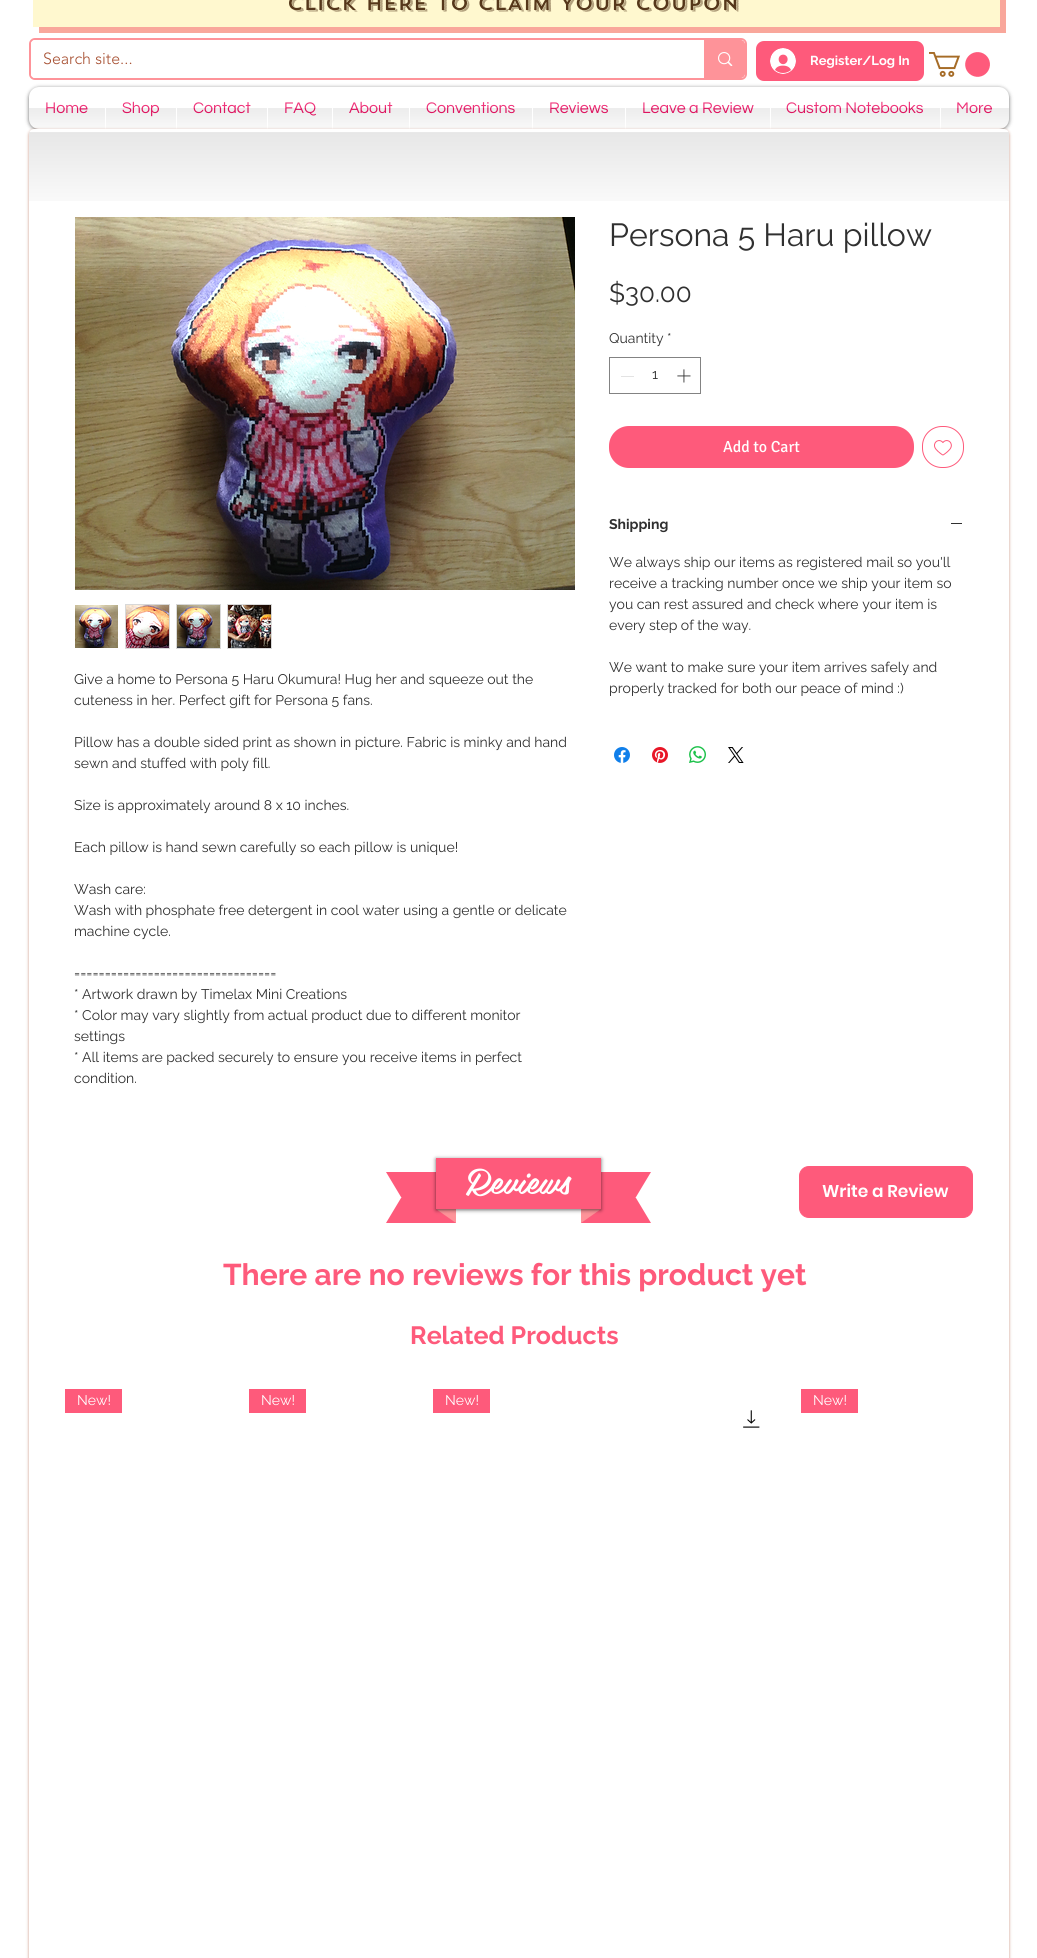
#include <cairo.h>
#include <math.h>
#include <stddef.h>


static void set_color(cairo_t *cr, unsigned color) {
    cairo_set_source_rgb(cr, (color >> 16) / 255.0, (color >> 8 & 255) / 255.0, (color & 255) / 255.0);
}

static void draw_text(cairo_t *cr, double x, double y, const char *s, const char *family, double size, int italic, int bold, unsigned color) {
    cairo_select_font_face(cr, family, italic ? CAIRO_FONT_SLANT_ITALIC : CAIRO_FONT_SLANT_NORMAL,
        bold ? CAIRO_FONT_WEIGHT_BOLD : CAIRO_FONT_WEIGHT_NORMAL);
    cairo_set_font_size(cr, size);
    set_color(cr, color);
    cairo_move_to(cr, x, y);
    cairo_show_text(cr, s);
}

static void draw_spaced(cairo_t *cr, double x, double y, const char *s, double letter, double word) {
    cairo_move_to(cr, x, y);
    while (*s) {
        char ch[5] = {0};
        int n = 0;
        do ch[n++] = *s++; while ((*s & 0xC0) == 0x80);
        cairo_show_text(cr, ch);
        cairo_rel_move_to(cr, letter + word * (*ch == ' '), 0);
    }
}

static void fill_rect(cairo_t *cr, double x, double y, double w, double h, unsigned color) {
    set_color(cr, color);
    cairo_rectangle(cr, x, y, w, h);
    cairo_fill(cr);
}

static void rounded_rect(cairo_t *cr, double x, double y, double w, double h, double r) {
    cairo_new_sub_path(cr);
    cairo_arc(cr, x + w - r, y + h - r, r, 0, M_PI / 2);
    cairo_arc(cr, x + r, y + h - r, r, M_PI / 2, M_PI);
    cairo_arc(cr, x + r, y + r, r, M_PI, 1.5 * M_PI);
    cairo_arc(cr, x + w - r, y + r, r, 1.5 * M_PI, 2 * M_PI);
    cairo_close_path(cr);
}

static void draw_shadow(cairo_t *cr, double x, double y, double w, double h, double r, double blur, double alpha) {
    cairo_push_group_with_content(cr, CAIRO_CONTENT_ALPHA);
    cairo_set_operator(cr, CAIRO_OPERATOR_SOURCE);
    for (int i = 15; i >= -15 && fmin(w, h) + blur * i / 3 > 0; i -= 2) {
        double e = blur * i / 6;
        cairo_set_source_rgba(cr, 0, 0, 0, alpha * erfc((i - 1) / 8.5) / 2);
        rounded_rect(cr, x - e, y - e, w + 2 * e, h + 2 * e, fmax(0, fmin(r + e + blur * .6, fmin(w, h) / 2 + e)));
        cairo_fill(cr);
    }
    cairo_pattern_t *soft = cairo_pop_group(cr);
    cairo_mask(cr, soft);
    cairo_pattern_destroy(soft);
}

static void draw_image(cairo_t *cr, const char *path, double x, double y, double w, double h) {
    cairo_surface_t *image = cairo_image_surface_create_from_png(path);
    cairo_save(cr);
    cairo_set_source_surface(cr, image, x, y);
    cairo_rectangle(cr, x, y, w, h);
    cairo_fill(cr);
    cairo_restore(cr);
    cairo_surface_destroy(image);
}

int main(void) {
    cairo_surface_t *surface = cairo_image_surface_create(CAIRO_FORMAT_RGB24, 1037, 1958);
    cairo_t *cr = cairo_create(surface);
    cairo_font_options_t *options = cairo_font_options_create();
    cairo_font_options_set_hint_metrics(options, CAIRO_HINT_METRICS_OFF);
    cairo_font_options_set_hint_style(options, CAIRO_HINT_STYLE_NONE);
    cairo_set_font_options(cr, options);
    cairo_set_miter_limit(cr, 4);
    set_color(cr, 0xFFFFFF);
    cairo_paint(cr);
    set_color(cr, 0xF9A79B);
    cairo_new_path(cr);
    cairo_move_to(cr, 39, 27);
    cairo_line_to(cr, 39, 33);
    cairo_line_to(cr, 1006, 33);
    cairo_line_to(cr, 1006, -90);
    cairo_line_to(cr, 1000, -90);
    cairo_line_to(cr, 1000, 27);
    cairo_close_path(cr);
    cairo_fill(cr);
    fill_rect(cr, 33, 0, 967, 27, 0xFFF8CF);
    draw_text(cr, 287, 10, "CLICK HERE TO CLAIM YOUR COUPON", "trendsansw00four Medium", 20, 0, 0, 0x55371A);
    rounded_rect(cr, 30, 39, 716, 40, 5);
    set_color(cr, 0xFE9399);
    cairo_stroke(cr);
    set_color(cr, 0xFFFFFF);
    rounded_rect(cr, 31, 40, 714, 38, 4);
    cairo_fill(cr);
    draw_text(cr, 43, 64, "Search site...", "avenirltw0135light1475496 Light", 16, 0, 0, 0xA75032);
    set_color(cr, 0xFE9399);
    cairo_new_path(cr);
    cairo_move_to(cr, 704, 40);
    cairo_line_to(cr, 741, 40);
    cairo_curve_to(cr, 743, 40, 745, 42, 745, 44);
    cairo_line_to(cr, 745, 74);
    cairo_curve_to(cr, 745, 76, 743, 78, 741, 78);
    cairo_line_to(cr, 704, 78);
    cairo_close_path(cr);
    cairo_fill(cr);
    draw_image(cr, "assets/img1.png", 718, 52, 15, 14);
    set_color(cr, 0xFE5A7B);
    rounded_rect(cr, 756, 41, 168, 40, 8);
    cairo_fill(cr);
    draw_image(cr, "assets/img2.png", 770, 48, 26, 26);
    draw_text(cr, 810, 65, "Register/Log In", "Raleway", 13, 0, 1, 0xFFFFFF);
    draw_image(cr, "assets/img3.png", 929, 52, 61, 25);
    set_color(cr, 0x000000);
    draw_shadow(cr, 29, 88, 980, 42, 10, 2, 0.6);
    draw_image(cr, "assets/img4.png", 29, 119, 980, 5);
    set_color(cr, 0xFFFFFF);
    cairo_new_path(cr);
    cairo_move_to(cr, 39, 87);
    cairo_line_to(cr, 105, 87);
    cairo_line_to(cr, 105, 129);
    cairo_line_to(cr, 39, 129);
    cairo_curve_to(cr, 33.5, 129, 29, 124.5, 29, 119);
    cairo_line_to(cr, 29, 97);
    cairo_curve_to(cr, 29, 91.5, 33.5, 87, 39, 87);
    cairo_close_path(cr);
    cairo_fill(cr);
    draw_text(cr, 45, 113, "Home", "Questrial", 16, 0, 0, 0xED1566);
    draw_image(cr, "assets/img5.png", 29, 102, 76, 27);
    fill_rect(cr, 105, 87, 835, 42, 0xFFFFFF);
    draw_text(cr, 122, 113, "Shop", "Questrial", 16, 0, 0, 0xED1566);
    draw_image(cr, "assets/img6.png", 106, 101, 70, 28);
    draw_text(cr, 193, 113, "Contact", "Questrial", 16, 0, 0, 0xED1566);
    draw_image(cr, "assets/img7.png", 177, 102, 90, 27);
    draw_text(cr, 284, 113, "FAQ", "Questrial", 16, 0, 0, 0xED1566);
    draw_image(cr, "assets/img8.png", 268, 102, 64, 27);
    draw_text(cr, 349, 113, "About", "Questrial", 16, 0, 0, 0xED1566);
    draw_image(cr, "assets/img9.png", 333, 101, 76, 28);
    draw_text(cr, 426, 113, "Conventions", "Questrial", 16, 0, 0, 0xED1566);
    draw_image(cr, "assets/img10.png", 410, 102, 122, 27);
    draw_text(cr, 549, 113, "Reviews", "Questrial", 16, 0, 0, 0xED1566);
    draw_image(cr, "assets/img11.png", 533, 102, 92, 27);
    draw_text(cr, 642, 113, "Leave a Review", "Questrial", 16, 0, 0, 0xED1566);
    draw_image(cr, "assets/img12.png", 626, 102, 144, 27);
    draw_text(cr, 786, 113, "Custom Notebooks", "Questrial", 16, 0, 0, 0xED1566);
    draw_image(cr, "assets/img13.png", 771, 101, 169, 28);
    set_color(cr, 0xFFFFFF);
    cairo_new_path(cr);
    cairo_move_to(cr, 940, 87);
    cairo_line_to(cr, 999, 87);
    cairo_curve_to(cr, 1004.5, 87, 1009, 91.5, 1009, 97);
    cairo_line_to(cr, 1009, 119);
    cairo_curve_to(cr, 1009, 124.5, 1004.5, 129, 999, 129);
    cairo_line_to(cr, 940, 129);
    cairo_close_path(cr);
    cairo_fill(cr);
    draw_text(cr, 956, 113, "More", "Questrial", 16, 0, 0, 0xED1566);
    draw_image(cr, "assets/img14.png", 941, 102, 68, 27);
    set_color(cr, 0xA75032);
    draw_shadow(cr, 29, 130, 980, 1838, 5, 1.5, 0.6);
    set_color(cr, 0xFFFFFF);
    rounded_rect(cr, 29, 129, 980, 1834, 5);
    cairo_fill(cr);
    draw_image(cr, "assets/img15.png", 29, 132, 980, 69);
    draw_text(cr, 609, 246, "Persona 5 Haru pillow", "Raleway", 32, 0, 0, 0x303030);
    draw_text(cr, 609, 302, "$30.00", "Raleway", 26, 0, 0, 0x303030);
    draw_text(cr, 609, 343, "Quantity", "Raleway", 14, 0, 0, 0x303030);
    draw_text(cr, 667, 343, "*", "Raleway", 14, 0, 0, 0x303030);
    cairo_rectangle(cr, 609.5, 357.5, 91, 36);
    set_color(cr, 0x838383);
    cairo_set_line_width(cr, 1);
    cairo_stroke(cr);
    fill_rect(cr, 621, 376, 13, 1, 0xE3E3E3);
    draw_text(cr, 652, 379, "1", "Raleway", 14, 0, 0, 0x303030);
    draw_image(cr, "assets/img16.png", 677, 369, 14, 14);
    set_color(cr, 0xFE5A7B);
    rounded_rect(cr, 609, 426, 305, 42, 20);
    cairo_fill(cr);
    draw_text(cr, 723, 452, "Add to Cart", "Signika", 16, 0, 0, 0xFFFFFF);
    rounded_rect(cr, 922.5, 426.5, 41, 41, 19.5);
    set_color(cr, 0xFE5A7B);
    cairo_stroke(cr);
    draw_image(cr, "assets/img17.png", 934, 440, 18, 16);
    draw_text(cr, 609, 529, "Shipping", "Raleway", 14, 0, 1, 0x303030);
    fill_rect(cr, 951, 523, 11, 1, 0x303030);
    draw_text(cr, 609, 567, "We always ship our items as registered mail so you'll", "Raleway", 14, 0, 0, 0x303030);
    draw_text(cr, 609, 588, "receive a tracking number once we ship your item so", "Raleway", 14, 0, 0, 0x303030);
    draw_text(cr, 609, 609, "you can rest assured and check where your item is", "Raleway", 14, 0, 0, 0x303030);
    draw_text(cr, 609, 630, "every step of the way.", "Raleway", 14, 0, 0, 0x303030);
    draw_text(cr, 609, 672, "We want to make sure your item arrives safely and", "Raleway", 14, 0, 0, 0x303030);
    draw_text(cr, 609, 693, "properly tracked for both our peace of mind :)", "Raleway", 14, 0, 0, 0x303030);
    draw_image(cr, "assets/img18.png", 614, 747, 16, 16);
    draw_image(cr, "assets/img19.png", 652, 747, 16, 16);
    draw_image(cr, "assets/img20.png", 689, 746, 17, 17);
    draw_image(cr, "assets/img21.png", 728, 747, 16, 16);
    draw_image(cr, "assets/img22.png", 75, 217, 500, 373);
    draw_image(cr, "assets/img23.png", 75, 605, 43, 43);
    cairo_rectangle(cr, 125.5, 604.5, 44, 44);
    set_color(cr, 0xD8D8D8);
    cairo_stroke(cr);
    draw_image(cr, "assets/img24.png", 126, 605, 43, 43);
    cairo_rectangle(cr, 176.5, 604.5, 44, 44);
    cairo_stroke(cr);
    draw_image(cr, "assets/img25.png", 177, 605, 43, 43);
    cairo_rectangle(cr, 227.5, 604.5, 44, 44);
    cairo_stroke(cr);
    draw_image(cr, "assets/img26.png", 228, 605, 43, 43);
    draw_text(cr, 74, 684, "Give a home to Persona 5 Haru Okumura! Hug her and squeeze out the", "Raleway", 14, 0, 0, 0x303030);
    draw_text(cr, 74, 705, "cuteness in her. Perfect gift for Persona 5 fans.", "Raleway", 14, 0, 0, 0x303030);
    draw_text(cr, 74, 747, "Pillow has a double sided print as shown in picture. Fabric is minky and hand", "Raleway", 14, 0, 0, 0x303030);
    draw_text(cr, 74, 768, "sewn and stuffed with poly fill.", "Raleway", 14, 0, 0, 0x303030);
    draw_text(cr, 74, 810, "Size is approximately around 8 x 10 inches.", "Raleway", 14, 0, 0, 0x303030);
    draw_text(cr, 74, 852, "Each pillow is hand sewn carefully so each pillow is unique!", "Raleway", 14, 0, 0, 0x303030);
    draw_text(cr, 74, 894, "Wash care:", "Raleway", 14, 0, 0, 0x303030);
    draw_text(cr, 74, 915, "Wash with phosphate free detergent in cool water using a gentle or delicate", "Raleway", 14, 0, 0, 0x303030);
    draw_text(cr, 74, 936, "machine cycle.", "Raleway", 14, 0, 0, 0x303030);
    draw_text(cr, 74, 978, "=================================", "Raleway", 14, 0, 0, 0x303030);
    draw_text(cr, 74, 999, "* Artwork drawn by Timelax Mini Creations", "Raleway", 14, 0, 0, 0x303030);
    draw_text(cr, 74, 1020, "* Color may vary slightly from actual product due to different monitor", "Raleway", 14, 0, 0, 0x303030);
    draw_text(cr, 74, 1041, "settings", "Raleway", 14, 0, 0, 0x303030);
    draw_text(cr, 74, 1062, "* All items are packed securely to ensure you receive items in perfect", "Raleway", 14, 0, 0, 0x303030);
    draw_text(cr, 74, 1083, "condition.", "Raleway", 14, 0, 0, 0x303030);
    cairo_save(cr);
    cairo_rectangle(cr, 386, 1172, 265, 26);
    cairo_clip(cr);
    set_color(cr, 0xFE5A7B);
    cairo_new_path(cr);
    cairo_move_to(cr, 386, 1172);
    cairo_line_to(cr, 456, 1172);
    cairo_line_to(cr, 456, 1272);
    cairo_line_to(cr, 446, 1272);
    cairo_close_path(cr);
    cairo_fill(cr);
    cairo_new_path(cr);
    cairo_move_to(cr, 581, 1172);
    cairo_line_to(cr, 651, 1172);
    cairo_line_to(cr, 591, 1272);
    cairo_line_to(cr, 581, 1272);
    cairo_close_path(cr);
    cairo_fill(cr);
    cairo_restore(cr);
    cairo_save(cr);
    cairo_rectangle(cr, 386, 1198, 265, 25);
    cairo_clip(cr);
    set_color(cr, 0xFE5A7B);
    cairo_new_path(cr);
    cairo_move_to(cr, 456, 1223);
    cairo_line_to(cr, 386, 1223);
    cairo_line_to(cr, 446, 1123);
    cairo_line_to(cr, 456, 1123);
    cairo_close_path(cr);
    cairo_fill(cr);
    cairo_new_path(cr);
    cairo_move_to(cr, 651, 1223);
    cairo_line_to(cr, 581, 1223);
    cairo_line_to(cr, 581, 1123);
    cairo_line_to(cr, 591, 1123);
    cairo_close_path(cr);
    cairo_fill(cr);
    cairo_restore(cr);
    set_color(cr, 0xFE9399);
    cairo_new_path(cr);
    cairo_move_to(cr, 456, 1209);
    cairo_line_to(cr, 456, 1223);
    cairo_line_to(cr, 436, 1209);
    cairo_close_path(cr);
    cairo_fill(cr);
    cairo_new_path(cr);
    cairo_move_to(cr, 581, 1223);
    cairo_line_to(cr, 581, 1209);
    cairo_line_to(cr, 601, 1209);
    cairo_close_path(cr);
    cairo_fill(cr);
    set_color(cr, 0x000000);
    draw_shadow(cr, 436, 1159, 165, 51, 0, 2, 0.6);
    fill_rect(cr, 436, 1158, 165, 51, 0xFE5A7B);
    cairo_select_font_face(cr, "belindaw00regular", CAIRO_FONT_SLANT_NORMAL, CAIRO_FONT_WEIGHT_NORMAL);
    cairo_set_font_size(cr, 35);
    set_color(cr, 0xFFFFFF);
    draw_spaced(cr, 465, 1194, "Reviews", 0.25, 0);
    set_color(cr, 0xFE5A7B);
    rounded_rect(cr, 799.5, 1166.5, 173, 51, 9.5);
    cairo_fill_preserve(cr);
    cairo_stroke(cr);
    draw_text(cr, 822, 1197, "Write a Review", "Poppins SemiBold", 17, 0, 0, 0xFFFFFF);
    draw_text(cr, 223, 1285, "There are no reviews for this product yet", "Raleway", 30, 0, 1, 0xFE5A7B);
    draw_text(cr, 410, 1344, "Related Products", "Raleway", 25, 0, 1, 0xFE5A7B);
    fill_rect(cr, 65, 1389, 57, 24, 0xFE5A7B);
    draw_text(cr, 77, 1405, "New!", "Raleway", 14, 0, 0, 0xFFFFFF);
    fill_rect(cr, 249, 1389, 57, 24, 0xFE5A7B);
    draw_text(cr, 261, 1405, "New!", "Raleway", 14, 0, 0, 0xFFFFFF);
    fill_rect(cr, 433, 1389, 57, 24, 0xFE5A7B);
    draw_text(cr, 445, 1405, "New!", "Raleway", 14, 0, 0, 0xFFFFFF);
    fill_rect(cr, 801, 1389, 57, 24, 0xFE5A7B);
    draw_text(cr, 813, 1405, "New!", "Raleway", 14, 0, 0, 0xFFFFFF);
    draw_image(cr, "assets/img27.png", 743, 1410, 17, 18);
    cairo_surface_write_to_png(surface, "output.png");
    cairo_font_options_destroy(options);
    cairo_destroy(cr);
    cairo_surface_destroy(surface);
    return 0;
}
